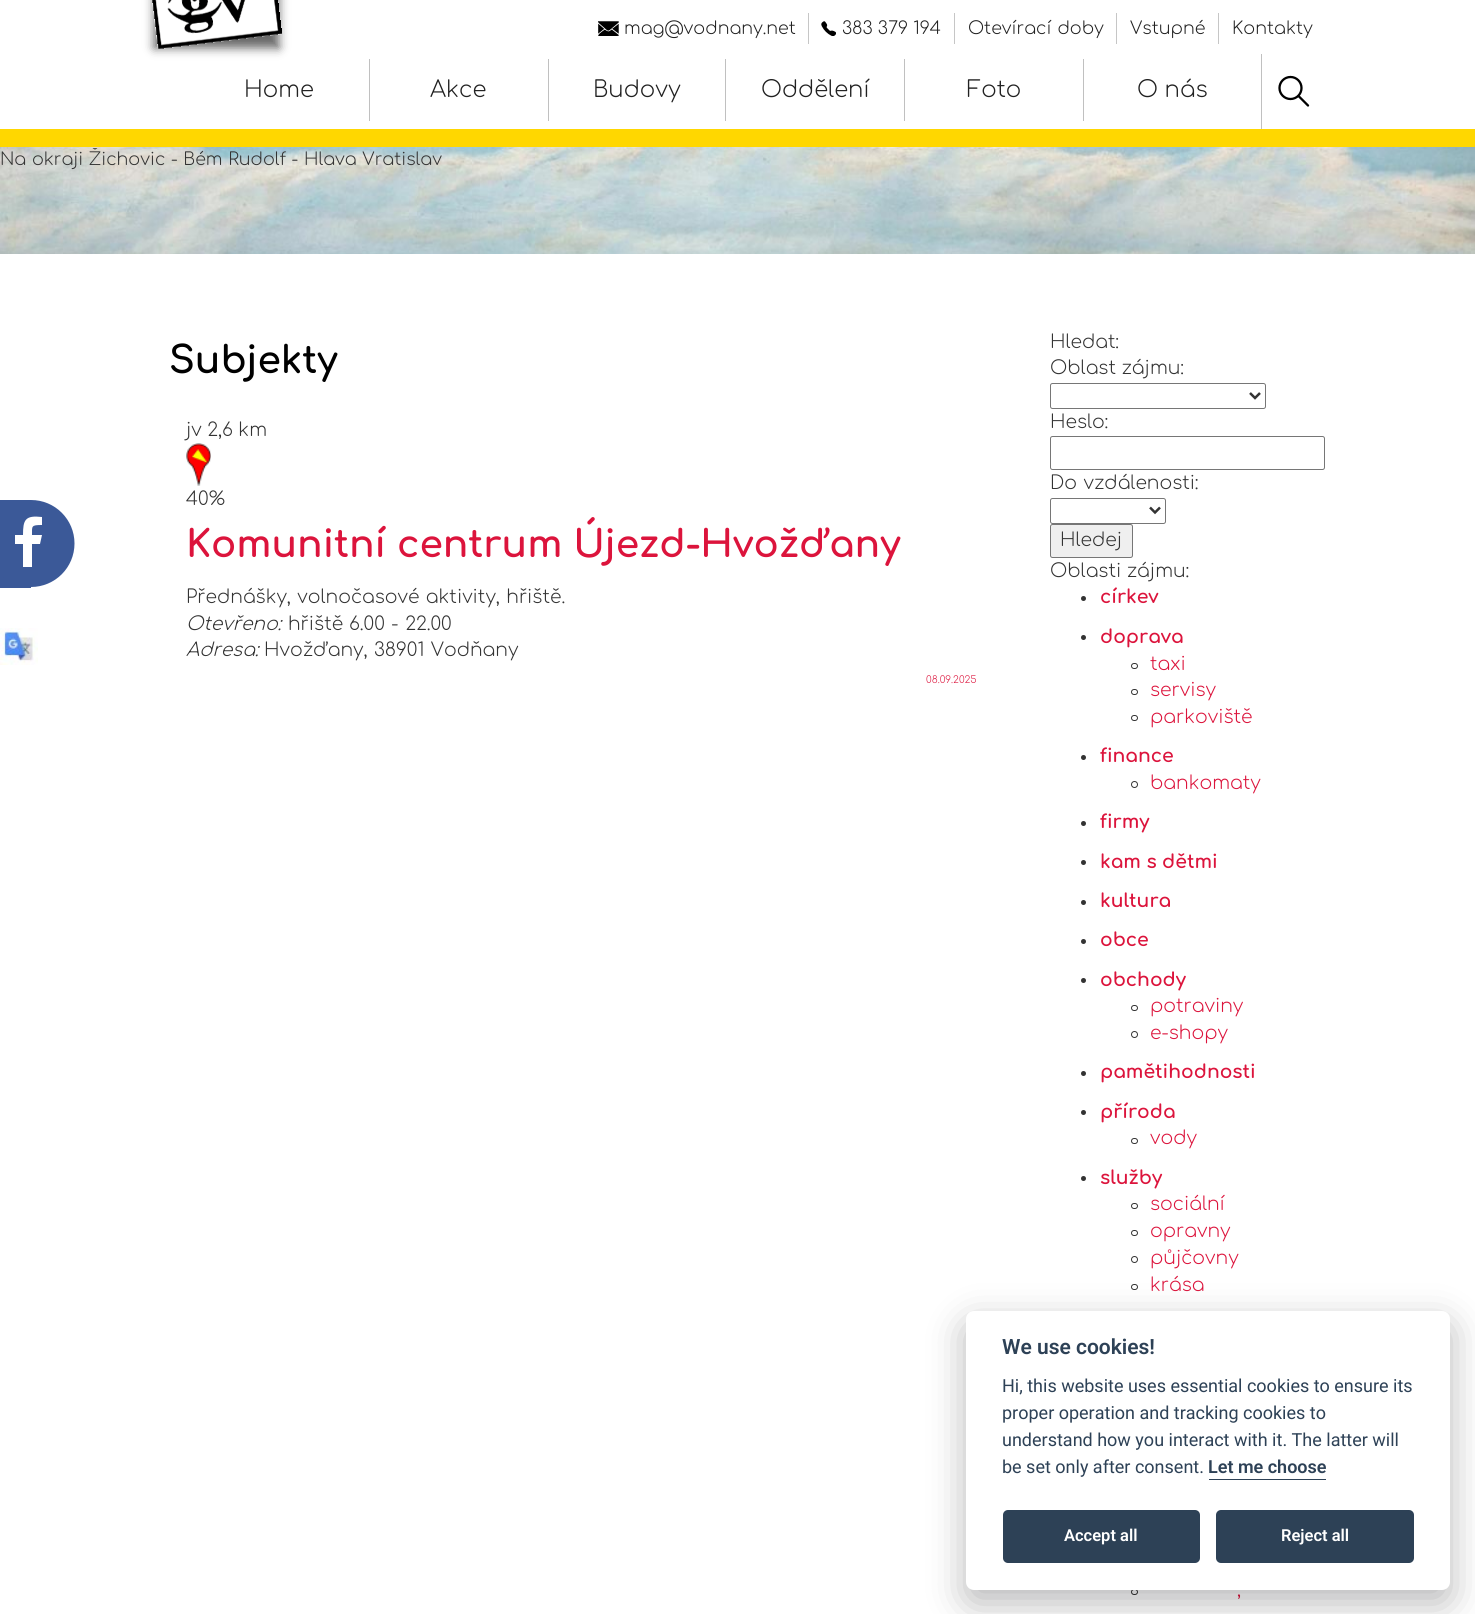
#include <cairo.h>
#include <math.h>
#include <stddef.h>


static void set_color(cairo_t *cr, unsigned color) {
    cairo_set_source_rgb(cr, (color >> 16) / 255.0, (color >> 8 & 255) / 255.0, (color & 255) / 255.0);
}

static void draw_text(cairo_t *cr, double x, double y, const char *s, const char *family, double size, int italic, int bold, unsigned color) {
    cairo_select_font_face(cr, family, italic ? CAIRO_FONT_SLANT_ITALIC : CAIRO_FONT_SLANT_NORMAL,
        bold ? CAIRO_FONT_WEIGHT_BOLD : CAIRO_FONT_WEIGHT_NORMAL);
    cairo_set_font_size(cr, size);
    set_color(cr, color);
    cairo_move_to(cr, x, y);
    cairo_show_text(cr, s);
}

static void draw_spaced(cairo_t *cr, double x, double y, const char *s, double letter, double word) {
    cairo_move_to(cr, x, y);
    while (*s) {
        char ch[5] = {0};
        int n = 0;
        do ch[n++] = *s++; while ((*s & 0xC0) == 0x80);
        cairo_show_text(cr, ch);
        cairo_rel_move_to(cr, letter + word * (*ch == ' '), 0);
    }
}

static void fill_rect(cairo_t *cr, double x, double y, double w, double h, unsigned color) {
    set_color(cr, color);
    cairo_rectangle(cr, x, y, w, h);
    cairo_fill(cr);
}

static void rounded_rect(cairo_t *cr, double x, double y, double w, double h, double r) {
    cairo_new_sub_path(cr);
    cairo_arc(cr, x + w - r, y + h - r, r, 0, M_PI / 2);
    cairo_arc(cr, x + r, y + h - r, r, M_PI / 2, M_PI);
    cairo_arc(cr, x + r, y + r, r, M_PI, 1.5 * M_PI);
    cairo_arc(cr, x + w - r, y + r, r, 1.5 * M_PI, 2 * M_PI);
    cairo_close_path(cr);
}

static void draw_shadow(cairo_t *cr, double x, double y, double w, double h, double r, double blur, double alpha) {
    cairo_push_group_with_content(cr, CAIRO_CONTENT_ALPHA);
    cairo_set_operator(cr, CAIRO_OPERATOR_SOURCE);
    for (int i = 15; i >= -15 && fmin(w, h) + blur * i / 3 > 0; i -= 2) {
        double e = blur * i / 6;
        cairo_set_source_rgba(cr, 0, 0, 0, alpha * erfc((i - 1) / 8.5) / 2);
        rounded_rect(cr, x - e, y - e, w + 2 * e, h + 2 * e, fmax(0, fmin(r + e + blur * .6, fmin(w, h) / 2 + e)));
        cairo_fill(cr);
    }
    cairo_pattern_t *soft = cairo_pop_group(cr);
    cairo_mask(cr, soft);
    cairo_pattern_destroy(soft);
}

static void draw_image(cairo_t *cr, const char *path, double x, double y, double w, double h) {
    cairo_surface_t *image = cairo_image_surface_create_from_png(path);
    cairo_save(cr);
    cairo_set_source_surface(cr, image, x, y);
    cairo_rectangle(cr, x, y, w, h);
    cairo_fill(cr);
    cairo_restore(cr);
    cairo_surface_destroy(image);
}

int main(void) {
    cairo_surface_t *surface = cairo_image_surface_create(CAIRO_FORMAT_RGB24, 1475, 1614);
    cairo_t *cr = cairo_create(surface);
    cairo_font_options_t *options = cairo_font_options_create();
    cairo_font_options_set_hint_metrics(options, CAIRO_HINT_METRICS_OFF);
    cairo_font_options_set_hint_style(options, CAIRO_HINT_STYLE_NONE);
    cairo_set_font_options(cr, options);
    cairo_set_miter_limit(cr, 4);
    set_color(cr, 0xFFFFFF);
    cairo_paint(cr);
    cairo_save(cr);
    cairo_set_fill_rule(cr, CAIRO_FILL_RULE_EVEN_ODD);
    cairo_new_path(cr);
    cairo_move_to(cr, 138, 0);
    cairo_line_to(cr, 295, 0);
    cairo_line_to(cr, 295, 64);
    cairo_line_to(cr, 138, 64);
    cairo_close_path(cr);
    cairo_move_to(cr, 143, -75.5);
    cairo_line_to(cr, 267, -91);
    cairo_line_to(cr, 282, 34);
    cairo_line_to(cr, 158, 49);
    cairo_close_path(cr);
    cairo_clip(cr);
    set_color(cr, 0x686868);
    draw_shadow(cr, 154, -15, 125, 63, 0, 5, 1);
    cairo_restore(cr);
    draw_image(cr, "assets/img1.png", 152, 0, 130, 49);
    draw_image(cr, "assets/img2.png", 598, 21, 21, 15);
    draw_text(cr, 624, 34, "mag@vodnany.net", "Comfortaa Light", 17.5, 0, 0, 0x212121);
    fill_rect(cr, 808, 13, 1, 31, 0xC6C6C6);
    draw_image(cr, "assets/img3.png", 821, 21, 15, 15);
    draw_text(cr, 842, 34, "383 379 194", "Comfortaa Light", 17.5, 0, 0, 0x212121);
    fill_rect(cr, 954, 13, 1, 31, 0xC6C6C6);
    set_color(cr, 0x212121);
    draw_spaced(cr, 968, 34, "Otevírací doby", 0, 1);
    fill_rect(cr, 1116, 13, 1, 31, 0xC6C6C6);
    draw_text(cr, 1130, 34, "Vstupné", "Comfortaa Light", 17.5, 0, 0, 0x212121);
    fill_rect(cr, 1218, 13, 1, 31, 0xC6C6C6);
    draw_text(cr, 1232, 34, "Kontakty", "Comfortaa Light", 17.5, 0, 0, 0x212121);
    draw_text(cr, 244, 97, "Home", "Comfortaa Light", 22.75, 0, 0, 0x212121);
    fill_rect(cr, 369, 59, 1, 62, 0xC0C0C0);
    draw_text(cr, 430, 97, "Akce", "Comfortaa Light", 22.75, 0, 0, 0x212121);
    fill_rect(cr, 548, 59, 1, 62, 0xC0C0C0);
    draw_text(cr, 593, 97, "Budovy", "Comfortaa Light", 22.75, 0, 0, 0x212121);
    fill_rect(cr, 725, 59, 1, 62, 0xC0C0C0);
    draw_text(cr, 761, 97, "Oddělení", "Comfortaa Light", 22.75, 0, 0, 0x212121);
    fill_rect(cr, 904, 59, 1, 62, 0xC0C0C0);
    draw_text(cr, 967, 97, "Foto", "Comfortaa Light", 22.75, 0, 0, 0x212121);
    fill_rect(cr, 1083, 59, 1, 62, 0xC0C0C0);
    draw_text(cr, 1137, 97, "O nás", "Comfortaa Light", 22.75, 0, 0, 0x212121);
    fill_rect(cr, 1261, 54, 1, 75, 0xC0C0C0);
    cairo_new_path(cr);
    cairo_arc(cr, 1290.5, 88, 11, 0, 2 * M_PI);
    set_color(cr, 0x000000);
    cairo_set_line_width(cr, 2.3);
    cairo_stroke(cr);
    cairo_new_path(cr);
    cairo_move_to(cr, 1308, 105.5);
    cairo_line_to(cr, 1298.5, 96);
    cairo_set_line_cap(cr, CAIRO_LINE_CAP_ROUND);
    cairo_set_line_join(cr, CAIRO_LINE_JOIN_ROUND);
    cairo_stroke(cr);
    fill_rect(cr, 0, 129, 1475, 18, 0xFFD700);
    draw_image(cr, "assets/img4.png", 0, 147, 1475, 107);
    cairo_save(cr);
    cairo_rectangle(cr, 0, 148, 1475, 106);
    cairo_clip(cr);
    cairo_set_font_size(cr, 17.5);
    set_color(cr, 0x333333);
    draw_spaced(cr, 0, 165, "Na okraji Žichovic - Bém Rudolf - Hlava Vratislav", 0, 0.5);
    cairo_restore(cr);
    fill_rect(cr, 0, 500, 31, 88, 0x3B5998);
    cairo_new_path(cr);
    cairo_arc(cr, 31, 543.5, 43.5, 0, 2 * M_PI);
    cairo_fill(cr);
    set_color(cr, 0xFFFFFF);
    cairo_new_path(cr);
    cairo_move_to(cr, 23, 567);
    cairo_line_to(cr, 23, 544);
    cairo_line_to(cr, 15, 544);
    cairo_line_to(cr, 15, 535);
    cairo_line_to(cr, 23, 535);
    cairo_curve_to(cr, 23, 520, 25, 515, 42, 517);
    cairo_line_to(cr, 42, 525);
    cairo_curve_to(cr, 31, 525, 32, 526, 32, 535);
    cairo_line_to(cr, 42, 535);
    cairo_line_to(cr, 40, 544);
    cairo_line_to(cr, 32, 544);
    cairo_line_to(cr, 32, 567);
    cairo_close_path(cr);
    cairo_fill(cr);
    draw_text(cr, 169, 373, "Subjekty", "Comfortaa", 37.5, 0, 1, 0x000000);
    draw_text(cr, 186, 436, "jv 2,6 km", "Comfortaa Light", 18.75, 0, 0, 0x333333);
    draw_image(cr, "assets/img5.png", 186, 443, 25, 43);
    draw_text(cr, 186, 505, "40%", "Comfortaa Light", 18.75, 0, 0, 0x333333);
    draw_text(cr, 186, 557, "Komunitní centrum Újezd-Hvožďany", "Comfortaa", 37.5, 0, 1, 0xDC143C);
    cairo_select_font_face(cr, "Comfortaa Light", CAIRO_FONT_SLANT_NORMAL, CAIRO_FONT_WEIGHT_NORMAL);
    cairo_set_font_size(cr, 18.75);
    set_color(cr, 0x333333);
    draw_spaced(cr, 186, 603, "Přednášky, volnočasové aktivity, hřiště.", 0, 1);
    draw_text(cr, 186, 630, "Otevřeno:", "Comfortaa Light", 18.75, 1, 0, 0x333333);
    draw_text(cr, 288, 630, "hřiště", "Comfortaa Light", 18.75, 0, 0, 0x333333);
    draw_spaced(cr, 349, 630, "6.00 - 22.00", 0, 1);
    draw_text(cr, 186, 656, "Adresa:", "Comfortaa Light", 18.75, 1, 0, 0x333333);
    cairo_select_font_face(cr, "Comfortaa Light", CAIRO_FONT_SLANT_NORMAL, CAIRO_FONT_WEIGHT_NORMAL);
    draw_spaced(cr, 264, 656, "Hvožďany, 38901 Vodňany", 0, 1);
    draw_text(cr, 926, 683, "08.09.2025", "Comfortaa Light", 10, 0, 0, 0xDC143C);
    draw_text(cr, 1050, 348, "Hledat:", "Comfortaa Light", 18.75, 0, 0, 0x333333);
    draw_text(cr, 1050, 374, "Oblast zájmu:", "Comfortaa Light", 18.75, 0, 0, 0x333333);
    rounded_rect(cr, 1050.5, 383.5, 215, 25, 2);
    set_color(cr, 0x767676);
    cairo_set_line_width(cr, 1);
    cairo_set_line_cap(cr, CAIRO_LINE_CAP_BUTT);
    cairo_set_line_join(cr, CAIRO_LINE_JOIN_MITER);
    cairo_stroke(cr);
    cairo_new_path(cr);
    cairo_move_to(cr, 1250, 393);
    cairo_line_to(cr, 1255, 398);
    cairo_line_to(cr, 1260, 393);
    set_color(cr, 0x333333);
    cairo_set_line_width(cr, 2.5);
    cairo_stroke(cr);
    draw_text(cr, 1050, 428, "Heslo:", "Comfortaa Light", 18.75, 0, 0, 0x333333);
    rounded_rect(cr, 1050.5, 436.5, 274, 33, 2);
    set_color(cr, 0x767676);
    cairo_set_line_width(cr, 1);
    cairo_stroke(cr);
    set_color(cr, 0x333333);
    draw_spaced(cr, 1050, 489, "Do vzdálenosti:", 0, 1);
    rounded_rect(cr, 1050.5, 498.5, 115, 25, 2);
    set_color(cr, 0x767676);
    cairo_stroke(cr);
    cairo_new_path(cr);
    cairo_move_to(cr, 1150, 507.5);
    cairo_line_to(cr, 1155, 512.5);
    cairo_line_to(cr, 1160, 507.5);
    set_color(cr, 0x333333);
    cairo_set_line_width(cr, 2.5);
    cairo_stroke(cr);
    set_color(cr, 0xEFEFEF);
    rounded_rect(cr, 1050.5, 524.5, 82, 33, 2);
    cairo_fill_preserve(cr);
    set_color(cr, 0x767676);
    cairo_set_line_width(cr, 1);
    cairo_stroke(cr);
    draw_text(cr, 1060, 546, "Hledej", "Comfortaa Light", 18.75, 0, 0, 0x333333);
    draw_text(cr, 1050, 577, "Oblasti zájmu:", "Comfortaa Light", 18.75, 0, 0, 0x333333);
    cairo_new_path(cr);
    cairo_arc(cr, 1083.5, 598.5, 2.5, 0, 2 * M_PI);
    cairo_fill(cr);
    draw_text(cr, 1100, 603, "církev", "Comfortaa", 18.75, 0, 1, 0xDC143C);
    set_color(cr, 0x333333);
    cairo_new_path(cr);
    cairo_arc(cr, 1083.5, 637.5, 2.5, 0, 2 * M_PI);
    cairo_fill(cr);
    draw_text(cr, 1100, 643, "doprava", "Comfortaa", 18.75, 0, 1, 0xDC143C);
    rounded_rect(cr, 1131.5, 663.5, 6, 5, 2.5);
    set_color(cr, 0x333333);
    cairo_stroke(cr);
    draw_text(cr, 1150, 670, "taxi", "Comfortaa Light", 18.75, 0, 0, 0xDC143C);
    rounded_rect(cr, 1131.5, 689.5, 6, 5, 2.5);
    set_color(cr, 0x333333);
    cairo_stroke(cr);
    draw_text(cr, 1150, 696, "servisy", "Comfortaa Light", 18.75, 0, 0, 0xDC143C);
    rounded_rect(cr, 1131.5, 715.5, 6, 5, 2.5);
    set_color(cr, 0x333333);
    cairo_stroke(cr);
    draw_text(cr, 1150, 723, "parkoviště", "Comfortaa Light", 18.75, 0, 0, 0xDC143C);
    set_color(cr, 0x333333);
    cairo_new_path(cr);
    cairo_arc(cr, 1083.5, 757.5, 2.5, 0, 2 * M_PI);
    cairo_fill(cr);
    draw_text(cr, 1100, 762, "finance", "Comfortaa", 18.75, 0, 1, 0xDC143C);
    cairo_new_path(cr);
    cairo_arc(cr, 1134.5, 784.5, 3, 0, 2 * M_PI);
    set_color(cr, 0x333333);
    cairo_stroke(cr);
    draw_text(cr, 1150, 789, "bankomaty", "Comfortaa Light", 18.75, 0, 0, 0xDC143C);
    set_color(cr, 0x333333);
    cairo_new_path(cr);
    cairo_arc(cr, 1083.5, 823.5, 2.5, 0, 2 * M_PI);
    cairo_fill(cr);
    draw_text(cr, 1100, 828, "firmy", "Comfortaa", 18.75, 0, 1, 0xDC143C);
    set_color(cr, 0x333333);
    cairo_new_path(cr);
    cairo_arc(cr, 1083.5, 862.5, 2.5, 0, 2 * M_PI);
    cairo_fill(cr);
    draw_text(cr, 1100, 868, "kam s dětmi", "Comfortaa", 18.75, 0, 1, 0xDC143C);
    set_color(cr, 0x333333);
    cairo_new_path(cr);
    cairo_arc(cr, 1083.5, 902.5, 2.5, 0, 2 * M_PI);
    cairo_fill(cr);
    draw_text(cr, 1100, 907, "kultura", "Comfortaa", 18.75, 0, 1, 0xDC143C);
    set_color(cr, 0x333333);
    cairo_new_path(cr);
    cairo_arc(cr, 1083.5, 941.5, 2.5, 0, 2 * M_PI);
    cairo_fill(cr);
    draw_text(cr, 1100, 946, "obce", "Comfortaa", 18.75, 0, 1, 0xDC143C);
    set_color(cr, 0x333333);
    cairo_new_path(cr);
    cairo_arc(cr, 1083.5, 980.5, 2.5, 0, 2 * M_PI);
    cairo_fill(cr);
    draw_text(cr, 1100, 986, "obchody", "Comfortaa", 18.75, 0, 1, 0xDC143C);
    rounded_rect(cr, 1131.5, 1005.5, 6, 5, 2.5);
    set_color(cr, 0x333333);
    cairo_stroke(cr);
    draw_text(cr, 1150, 1012, "potraviny", "Comfortaa Light", 18.75, 0, 0, 0xDC143C);
    cairo_new_path(cr);
    cairo_arc(cr, 1134.5, 1034.5, 3, 0, 2 * M_PI);
    set_color(cr, 0x333333);
    cairo_stroke(cr);
    draw_text(cr, 1150, 1039, "e-shopy", "Comfortaa Light", 18.75, 0, 0, 0xDC143C);
    set_color(cr, 0x333333);
    cairo_new_path(cr);
    cairo_arc(cr, 1083.5, 1073.5, 2.5, 0, 2 * M_PI);
    cairo_fill(cr);
    draw_text(cr, 1100, 1078, "pamětihodnosti", "Comfortaa", 18.75, 0, 1, 0xDC143C);
    set_color(cr, 0x333333);
    cairo_new_path(cr);
    cairo_arc(cr, 1083.5, 1112.5, 2.5, 0, 2 * M_PI);
    cairo_fill(cr);
    draw_text(cr, 1100, 1118, "příroda", "Comfortaa", 18.75, 0, 1, 0xDC143C);
    rounded_rect(cr, 1131.5, 1138.5, 6, 5, 2.5);
    set_color(cr, 0x333333);
    cairo_stroke(cr);
    draw_text(cr, 1150, 1144, "vody", "Comfortaa Light", 18.75, 0, 0, 0xDC143C);
    set_color(cr, 0x333333);
    cairo_new_path(cr);
    cairo_arc(cr, 1083.5, 1178.5, 2.5, 0, 2 * M_PI);
    cairo_fill(cr);
    draw_text(cr, 1100, 1184, "služby", "Comfortaa", 18.75, 0, 1, 0xDC143C);
    rounded_rect(cr, 1131.5, 1203.5, 6, 5, 2.5);
    set_color(cr, 0x333333);
    cairo_stroke(cr);
    draw_text(cr, 1150, 1210, "sociální", "Comfortaa Light", 18.75, 0, 0, 0xDC143C);
    rounded_rect(cr, 1131.5, 1230.5, 6, 5, 2.5);
    set_color(cr, 0x333333);
    cairo_stroke(cr);
    draw_text(cr, 1150, 1237, "opravny", "Comfortaa Light", 18.75, 0, 0, 0xDC143C);
    cairo_new_path(cr);
    cairo_arc(cr, 1134.5, 1259.5, 3, 0, 2 * M_PI);
    set_color(cr, 0x333333);
    cairo_stroke(cr);
    draw_text(cr, 1150, 1264, "půjčovny", "Comfortaa Light", 18.75, 0, 0, 0xDC143C);
    rounded_rect(cr, 1131.5, 1284.5, 6, 5, 2.5);
    set_color(cr, 0x333333);
    cairo_stroke(cr);
    draw_text(cr, 1150, 1291, "krása", "Comfortaa Light", 18.75, 0, 0, 0xDC143C);
    rounded_rect(cr, 1131.5, 1589.5, 6, 5, 2.5);
    set_color(cr, 0x333333);
    cairo_stroke(cr);
    draw_text(cr, 1237, 1596, ",", "Comfortaa Light", 18.75, 0, 0, 0xDC143C);
    draw_image(cr, "assets/img6.png", 0, 628, 38, 37);
    set_color(cr, 0x020203);
    draw_shadow(cr, 966, 1324, 484, 279, 8, 19, 0.28);
    set_color(cr, 0xFFFFFF);
    rounded_rect(cr, 966, 1311, 484, 279, 8);
    cairo_fill(cr);
    draw_text(cr, 1002, 1354, "We use cookies!", "Roboto SemiBold", 21, 0, 0, 0x2D4156);
    draw_text(cr, 1002, 1392, "Hi, this website uses essential cookies to ensure its", "Roboto", 18, 0, 0, 0x2D4156);
    draw_text(cr, 1002, 1419, "proper operation and tracking cookies to", "Roboto", 18, 0, 0, 0x2D4156);
    draw_text(cr, 1002, 1446, "understand how you interact with it. The latter will", "Roboto", 18, 0, 0, 0x2D4156);
    draw_text(cr, 1002, 1473, "be set only after consent.", "Roboto", 18, 0, 0, 0x2D4156);
    draw_text(cr, 1208, 1473, "Let me choose", "Roboto SemiBold", 18, 0, 0, 0x2D4156);
    fill_rect(cr, 1209, 1479, 117, 1, 0x2D4156);
    rounded_rect(cr, 1003, 1510, 197, 53, 5);
    cairo_fill(cr);
    draw_text(cr, 1064, 1541, "Accept all", "Roboto SemiBold", 16.5, 0, 0, 0xFFFFFF);
    set_color(cr, 0x2D4156);
    rounded_rect(cr, 1216, 1510, 198, 53, 5);
    cairo_fill(cr);
    draw_text(cr, 1281, 1541, "Reject all", "Roboto SemiBold", 16.5, 0, 0, 0xFFFFFF);
    cairo_surface_write_to_png(surface, "output.png");
    cairo_font_options_destroy(options);
    cairo_destroy(cr);
    cairo_surface_destroy(surface);
    return 0;
}
